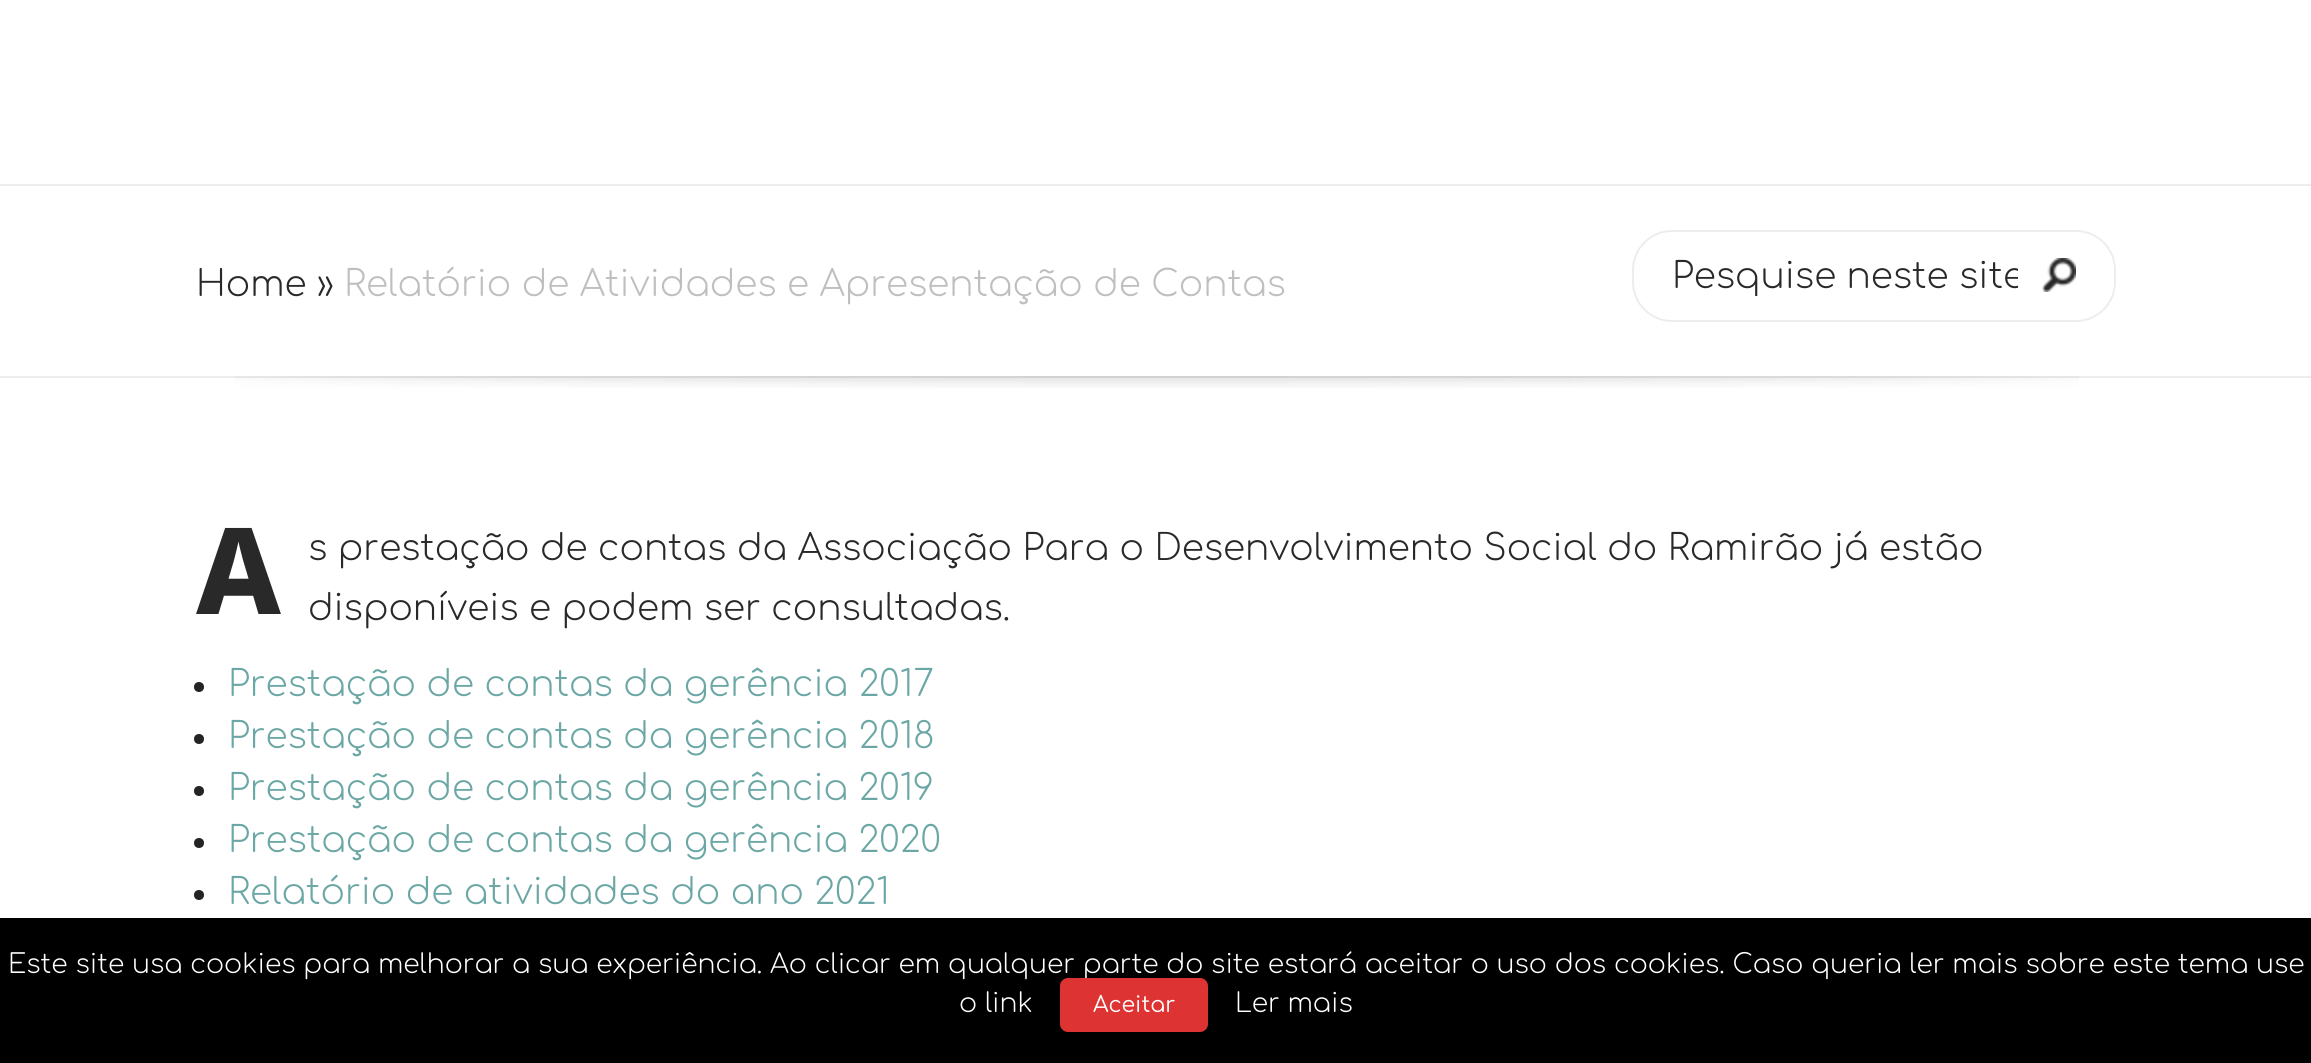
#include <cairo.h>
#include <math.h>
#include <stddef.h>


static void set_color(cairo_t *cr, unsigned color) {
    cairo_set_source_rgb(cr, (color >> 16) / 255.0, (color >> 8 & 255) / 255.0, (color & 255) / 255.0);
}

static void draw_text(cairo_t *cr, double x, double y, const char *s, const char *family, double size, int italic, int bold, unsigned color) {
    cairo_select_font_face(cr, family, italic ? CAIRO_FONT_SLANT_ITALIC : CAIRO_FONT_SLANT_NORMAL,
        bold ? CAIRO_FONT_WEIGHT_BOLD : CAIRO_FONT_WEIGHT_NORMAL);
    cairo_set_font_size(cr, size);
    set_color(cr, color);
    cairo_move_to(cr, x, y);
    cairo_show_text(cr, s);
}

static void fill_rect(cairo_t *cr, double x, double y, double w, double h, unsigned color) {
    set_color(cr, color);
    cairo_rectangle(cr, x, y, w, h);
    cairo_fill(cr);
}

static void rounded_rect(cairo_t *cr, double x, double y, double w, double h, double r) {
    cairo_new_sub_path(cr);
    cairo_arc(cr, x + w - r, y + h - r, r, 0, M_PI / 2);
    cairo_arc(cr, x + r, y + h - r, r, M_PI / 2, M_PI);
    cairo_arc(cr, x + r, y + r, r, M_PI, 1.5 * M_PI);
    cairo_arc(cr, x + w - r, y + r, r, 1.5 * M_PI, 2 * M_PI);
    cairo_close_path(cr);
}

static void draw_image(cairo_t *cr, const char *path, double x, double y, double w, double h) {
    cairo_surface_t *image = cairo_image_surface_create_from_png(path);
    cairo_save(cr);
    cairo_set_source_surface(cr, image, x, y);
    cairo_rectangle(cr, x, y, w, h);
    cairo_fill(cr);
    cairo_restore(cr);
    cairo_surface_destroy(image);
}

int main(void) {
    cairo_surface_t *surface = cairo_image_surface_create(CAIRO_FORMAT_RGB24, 2311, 1063);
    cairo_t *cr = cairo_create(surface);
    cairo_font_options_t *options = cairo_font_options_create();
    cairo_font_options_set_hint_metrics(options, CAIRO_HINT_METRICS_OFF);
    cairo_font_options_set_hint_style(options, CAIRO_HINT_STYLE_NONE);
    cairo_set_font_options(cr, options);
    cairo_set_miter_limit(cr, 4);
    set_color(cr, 0xFFFFFF);
    cairo_paint(cr);
    fill_rect(cr, 0, 184, 2311, 2, 0xEDEDED);
    fill_rect(cr, 0, 376, 2311, 2, 0xEDEDED);
    draw_text(cr, 196, 296, "Home »", "Comfortaa Light", 36, 0, 0, 0x292929);
    draw_text(cr, 344, 296, "Relatório de Atividades e Apresentação de Contas", "Comfortaa Light", 36, 0, 0, 0xBFBFBF);
    rounded_rect(cr, 1633, 231, 482, 90, 39);
    set_color(cr, 0xEDEDED);
    cairo_stroke(cr);
    cairo_save(cr);
    cairo_rectangle(cr, 1672, 256, 346, 40);
    cairo_clip(cr);
    draw_text(cr, 1672, 288, "Pesquise neste site", "Comfortaa Light", 36, 0, 0, 0x292929);
    cairo_restore(cr);
    draw_image(cr, "assets/img1.png", 2042, 258, 34, 34);
    draw_image(cr, "assets/img2.png", 235, 376, 1844, 12);
    draw_text(cr, 196, 614, "A", "Noto Sans ExtraBold", 120, 0, 0, 0x292929);
    draw_text(cr, 308, 560, "s prestação de contas da Associação Para o Desenvolvimento Social do Ramirão já estão", "Comfortaa Light", 36, 0, 0, 0x292929);
    draw_text(cr, 308, 620, "disponíveis e podem ser consultadas.", "Comfortaa Light", 36, 0, 0, 0x292929);
    set_color(cr, 0x242424);
    cairo_new_path(cr);
    cairo_arc(cr, 199, 687, 5, 0, 2 * M_PI);
    cairo_fill(cr);
    draw_text(cr, 228, 696, "Prestação de contas da gerência 2017", "Comfortaa Light", 36, 0, 0, 0x6BA7A5);
    set_color(cr, 0x242424);
    cairo_new_path(cr);
    cairo_arc(cr, 199, 739, 5, 0, 2 * M_PI);
    cairo_fill(cr);
    draw_text(cr, 228, 748, "Prestação de contas da gerência 2018", "Comfortaa Light", 36, 0, 0, 0x6BA7A5);
    set_color(cr, 0x242424);
    cairo_new_path(cr);
    cairo_arc(cr, 199, 791, 5, 0, 2 * M_PI);
    cairo_fill(cr);
    draw_text(cr, 228, 800, "Prestação de contas da gerência 2019", "Comfortaa Light", 36, 0, 0, 0x6BA7A5);
    set_color(cr, 0x242424);
    cairo_new_path(cr);
    cairo_arc(cr, 199, 843, 5, 0, 2 * M_PI);
    cairo_fill(cr);
    draw_text(cr, 228, 852, "Prestação de contas da gerência 2020", "Comfortaa Light", 36, 0, 0, 0x6BA7A5);
    set_color(cr, 0x242424);
    cairo_new_path(cr);
    cairo_arc(cr, 199, 895, 5, 0, 2 * M_PI);
    cairo_fill(cr);
    draw_text(cr, 228, 904, "Relatório de atividades do ano 2021", "Comfortaa Light", 36, 0, 0, 0x6BA7A5);
    fill_rect(cr, 0, 918, 2311, 145, 0x000000);
    draw_text(cr, 8, 973, "Este site usa cookies para melhorar a sua experiência. Ao clicar em qualquer parte do site estará aceitar o uso dos cookies. Caso queria ler mais sobre este tema use", "Comfortaa Light", 26.67, 0, 0, 0xFFFFFF);
    draw_text(cr, 959, 1012, "o link", "Comfortaa Light", 26.67, 0, 0, 0xFFFFFF);
    set_color(cr, 0xDD3333);
    rounded_rect(cr, 1060, 978, 148, 54, 8);
    cairo_fill(cr);
    draw_text(cr, 1093, 1012, "Aceitar", "Comfortaa", 22, 0, 0, 0xFFFFFF);
    draw_text(cr, 1235, 1012, "Ler mais", "Comfortaa Light", 26.67, 0, 0, 0xFFFFFF);
    cairo_surface_write_to_png(surface, "output.png");
    cairo_font_options_destroy(options);
    cairo_destroy(cr);
    cairo_surface_destroy(surface);
    return 0;
}
